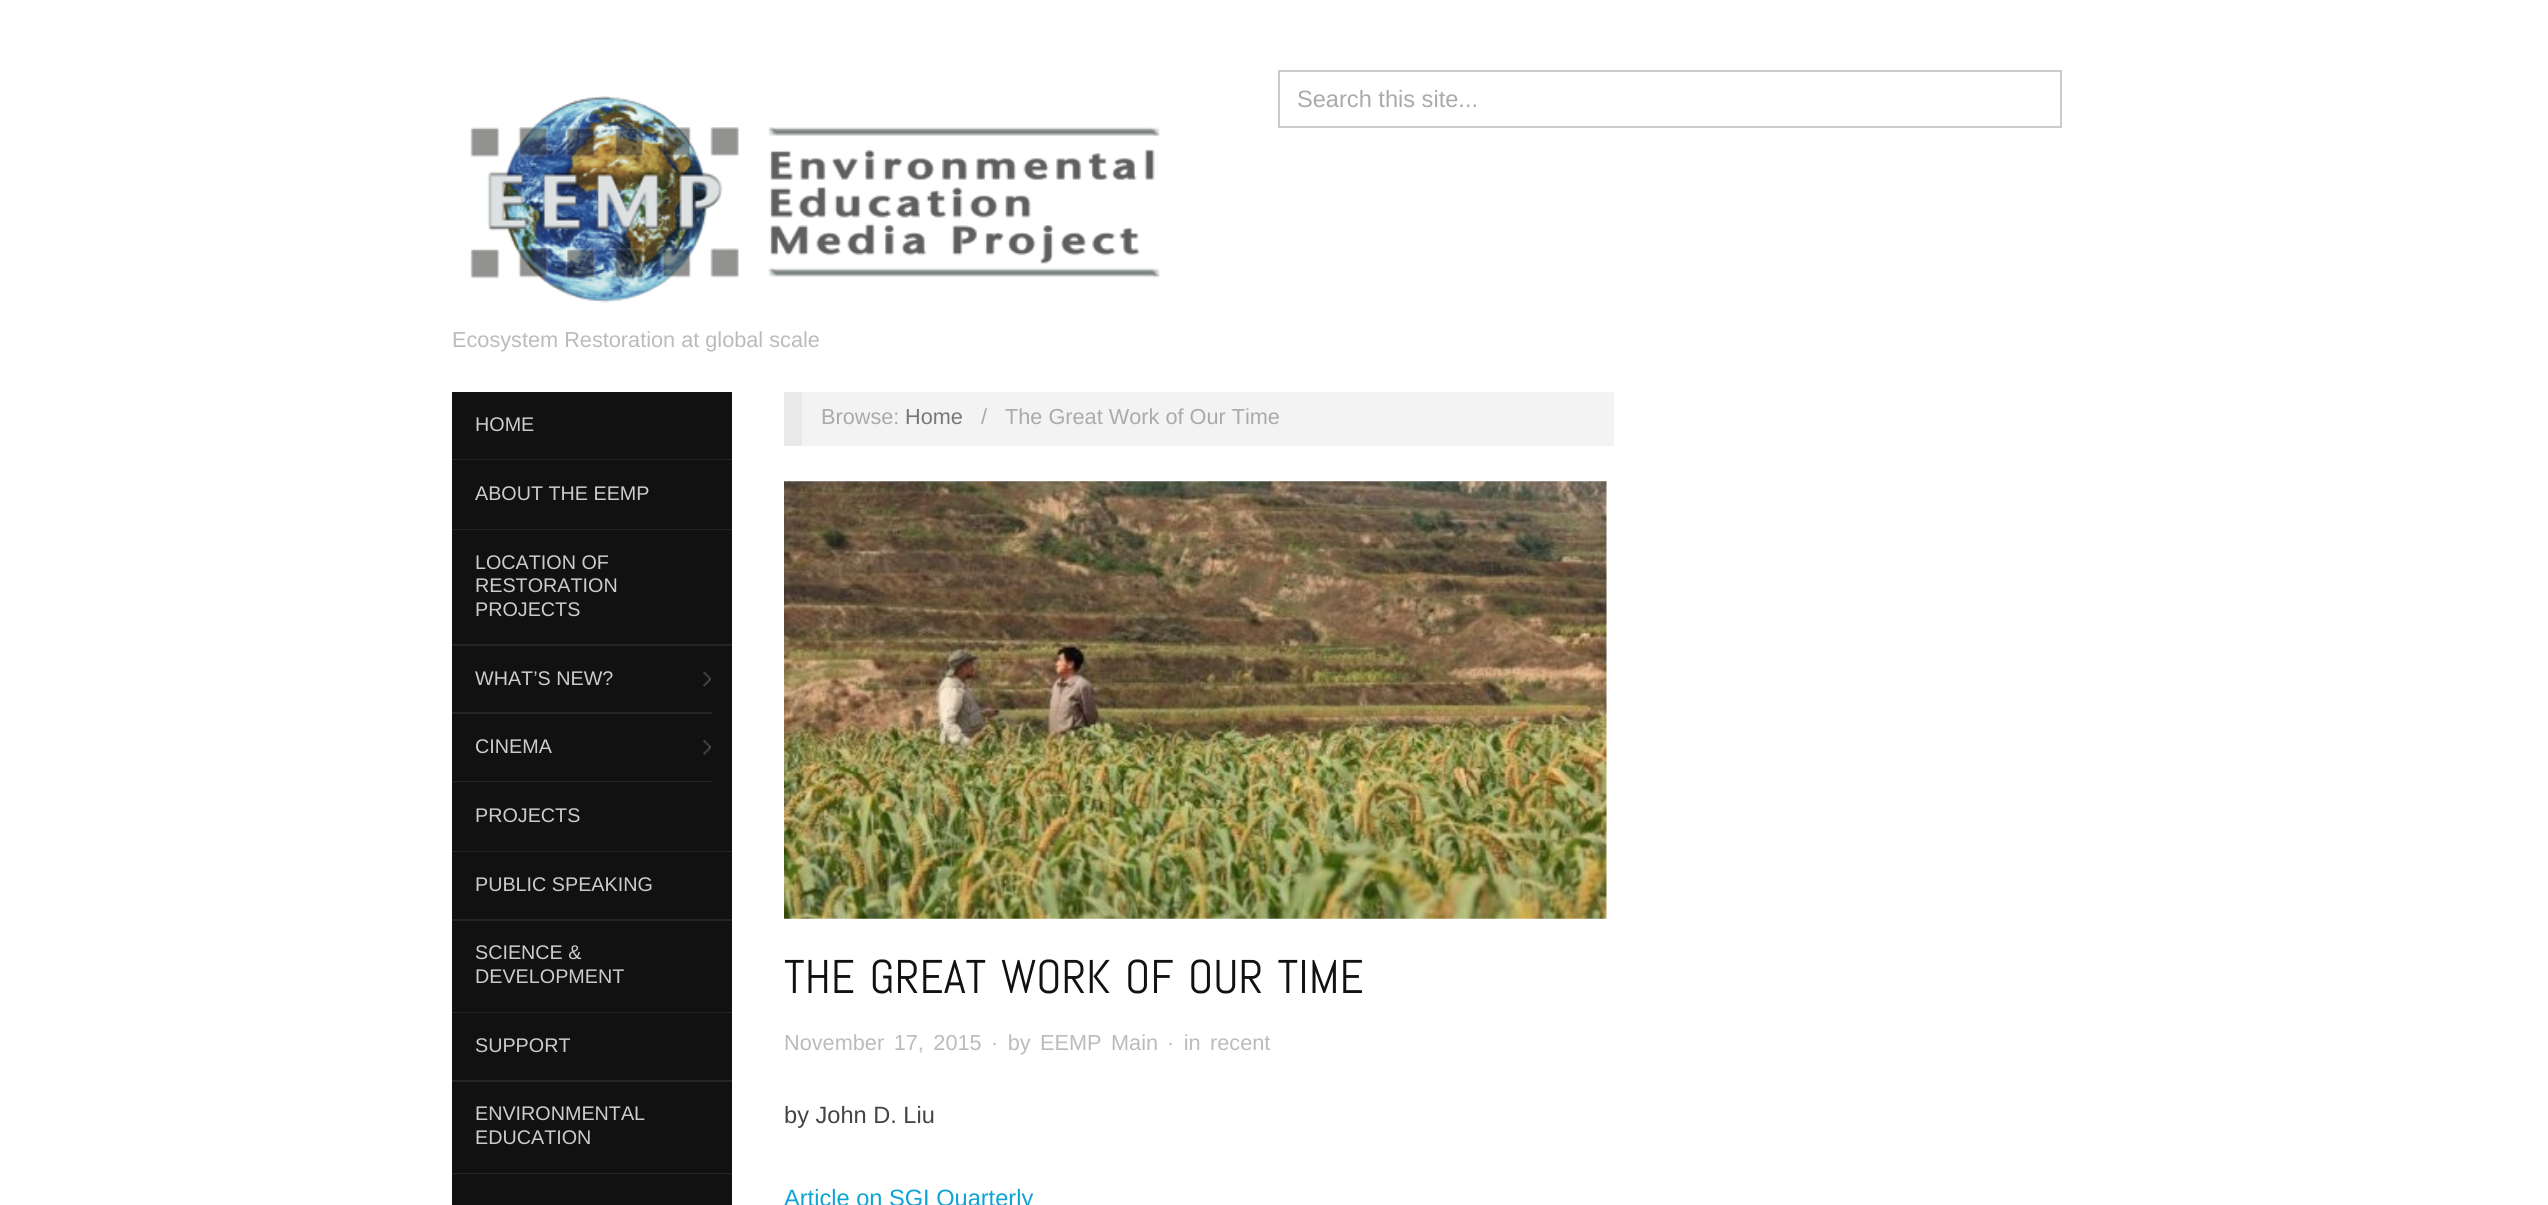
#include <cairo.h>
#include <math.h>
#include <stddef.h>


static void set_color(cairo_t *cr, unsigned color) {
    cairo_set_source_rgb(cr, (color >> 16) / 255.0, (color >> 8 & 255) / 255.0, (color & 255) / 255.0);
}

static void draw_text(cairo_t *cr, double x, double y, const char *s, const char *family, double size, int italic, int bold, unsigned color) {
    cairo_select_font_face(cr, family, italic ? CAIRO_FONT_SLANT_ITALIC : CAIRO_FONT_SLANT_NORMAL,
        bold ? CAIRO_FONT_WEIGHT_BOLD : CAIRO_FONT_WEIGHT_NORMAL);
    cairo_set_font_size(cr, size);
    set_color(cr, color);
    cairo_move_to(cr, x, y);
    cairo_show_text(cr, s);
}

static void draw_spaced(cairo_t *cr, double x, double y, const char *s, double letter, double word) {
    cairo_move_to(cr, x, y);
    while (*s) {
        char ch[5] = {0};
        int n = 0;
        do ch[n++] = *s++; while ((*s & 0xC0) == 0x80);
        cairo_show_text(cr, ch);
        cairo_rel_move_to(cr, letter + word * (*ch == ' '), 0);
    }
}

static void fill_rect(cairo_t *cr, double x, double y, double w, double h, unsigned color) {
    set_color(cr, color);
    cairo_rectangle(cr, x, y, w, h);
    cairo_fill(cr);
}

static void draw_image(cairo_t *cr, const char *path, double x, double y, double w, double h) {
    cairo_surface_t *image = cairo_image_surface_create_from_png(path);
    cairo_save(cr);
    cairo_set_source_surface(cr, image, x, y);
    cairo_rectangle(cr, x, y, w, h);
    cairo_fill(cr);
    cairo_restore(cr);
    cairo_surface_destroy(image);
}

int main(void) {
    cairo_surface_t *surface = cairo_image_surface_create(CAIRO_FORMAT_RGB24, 2548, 1205);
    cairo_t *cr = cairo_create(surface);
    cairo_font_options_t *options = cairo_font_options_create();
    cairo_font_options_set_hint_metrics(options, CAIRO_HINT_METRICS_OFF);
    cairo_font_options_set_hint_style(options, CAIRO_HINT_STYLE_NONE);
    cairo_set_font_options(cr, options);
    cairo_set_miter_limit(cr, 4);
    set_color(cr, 0xFFFFFF);
    cairo_paint(cr);
    cairo_rectangle(cr, 1279, 71, 782, 56);
    set_color(cr, 0xCCCCCC);
    cairo_stroke(cr);
    draw_text(cr, 1297, 107, "Search this site...", "Liberation Sans", 23.6, 0, 0, 0xAAAAAA);
    draw_image(cr, "assets/img1.png", 470, 96, 690, 207);
    draw_text(cr, 452, 347, "Ecosystem Restoration at global scale", "Liberation Sans", 21.7, 0, 0, 0xBBBBBB);
    fill_rect(cr, 452, 392, 280, 781, 0x111111);
    fill_rect(cr, 452, 459, 280, 1, 0x252525);
    draw_text(cr, 475, 431, "HOME", "Liberation Sans", 19.75, 0, 0, 0xCCCCCC);
    fill_rect(cr, 452, 529, 280, 1, 0x252525);
    draw_text(cr, 475, 500, "ABOUT THE EEMP", "Liberation Sans", 19.75, 0, 0, 0xCCCCCC);
    fill_rect(cr, 452, 644, 280, 2, 0x252525);
    draw_text(cr, 475, 569, "LOCATION OF", "Liberation Sans", 19.75, 0, 0, 0xCCCCCC);
    draw_text(cr, 475, 592, "RESTORATION", "Liberation Sans", 19.75, 0, 0, 0xCCCCCC);
    draw_text(cr, 475, 616, "PROJECTS", "Liberation Sans", 19.75, 0, 0, 0xCCCCCC);
    draw_image(cr, "assets/img2.png", 703, 671, 8, 16);
    fill_rect(cr, 452, 712, 260, 2, 0x252525);
    draw_text(cr, 475, 685, "WHAT’S NEW?", "Liberation Sans", 19.75, 0, 0, 0xCCCCCC);
    draw_image(cr, "assets/img3.png", 703, 739, 8, 16);
    fill_rect(cr, 452, 781, 260, 1, 0x252525);
    draw_text(cr, 475, 753, "CINEMA", "Liberation Sans", 19.75, 0, 0, 0xCCCCCC);
    fill_rect(cr, 452, 851, 280, 1, 0x252525);
    draw_text(cr, 475, 822, "PROJECTS", "Liberation Sans", 19.75, 0, 0, 0xCCCCCC);
    fill_rect(cr, 452, 919, 280, 2, 0x252525);
    draw_text(cr, 475, 891, "PUBLIC SPEAKING", "Liberation Sans", 19.75, 0, 0, 0xCCCCCC);
    fill_rect(cr, 452, 1012, 280, 1, 0x252525);
    draw_text(cr, 475, 959, "SCIENCE &", "Liberation Sans", 19.75, 0, 0, 0xCCCCCC);
    draw_text(cr, 475, 983, "DEVELOPMENT", "Liberation Sans", 19.75, 0, 0, 0xCCCCCC);
    fill_rect(cr, 452, 1080, 280, 2, 0x252525);
    draw_text(cr, 475, 1052, "SUPPORT", "Liberation Sans", 19.75, 0, 0, 0xCCCCCC);
    fill_rect(cr, 452, 1173, 280, 1, 0x252525);
    draw_text(cr, 475, 1120, "ENVIRONMENTAL", "Liberation Sans", 19.75, 0, 0, 0xCCCCCC);
    draw_text(cr, 475, 1144, "EDUCATION", "Liberation Sans", 19.75, 0, 0, 0xCCCCCC);
    fill_rect(cr, 452, 1174, 280, 31, 0x111111);
    fill_rect(cr, 802, 392, 812, 54, 0xF3F3F3);
    fill_rect(cr, 784, 392, 18, 54, 0xE9E9E9);
    draw_text(cr, 821, 424, "Browse:", "Liberation Sans", 21.7, 0, 0, 0xAAAAAA);
    draw_text(cr, 905, 424, "Home", "Liberation Sans", 21.7, 0, 0, 0x777777);
    draw_text(cr, 981, 424, "/", "Liberation Sans", 21.7, 0, 0, 0xAAAAAA);
    draw_text(cr, 1005, 424, "The Great Work of Our Time", "Liberation Sans", 21.7, 0, 0, 0xAAAAAA);
    draw_image(cr, "assets/img4.png", 784, 481, 823, 438);
    cairo_select_font_face(cr, "Abel", CAIRO_FONT_SLANT_NORMAL, CAIRO_FONT_WEIGHT_NORMAL);
    cairo_set_font_size(cr, 47.25);
    set_color(cr, 0x111111);
    draw_spaced(cr, 784, 993, "THE GREAT WORK OF OUR TIME", 0, 3.5);
    cairo_select_font_face(cr, "Liberation Sans", CAIRO_FONT_SLANT_NORMAL, CAIRO_FONT_WEIGHT_NORMAL);
    cairo_set_font_size(cr, 21.7);
    set_color(cr, 0xBBBBBB);
    draw_spaced(cr, 784, 1050, "November 17, 2015", 0, 3.5);
    draw_spaced(cr, 991, 1050, "· by", 0, 3.5);
    draw_spaced(cr, 1040, 1050, "EEMP Main", 0, 3.5);
    draw_spaced(cr, 1167, 1050, "· in", 0, 3.5);
    draw_text(cr, 1210, 1050, "recent", "Liberation Sans", 21.7, 0, 0, 0xBBBBBB);
    draw_text(cr, 784, 1123, "by John D. Liu", "Liberation Sans", 23.6, 0, 0, 0x444444);
    draw_text(cr, 784, 1206, "Article on SGI Quarterly", "Liberation Sans", 23.6, 0, 0, 0x0DA4D3);
    cairo_surface_write_to_png(surface, "output.png");
    cairo_font_options_destroy(options);
    cairo_destroy(cr);
    cairo_surface_destroy(surface);
    return 0;
}
